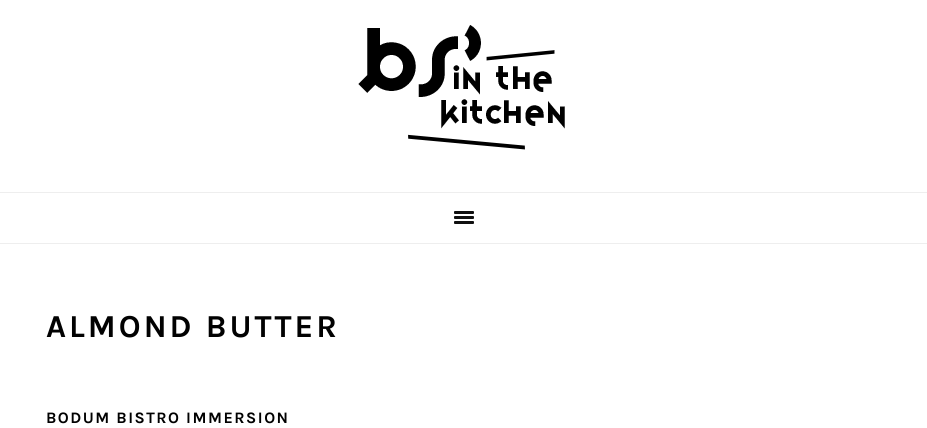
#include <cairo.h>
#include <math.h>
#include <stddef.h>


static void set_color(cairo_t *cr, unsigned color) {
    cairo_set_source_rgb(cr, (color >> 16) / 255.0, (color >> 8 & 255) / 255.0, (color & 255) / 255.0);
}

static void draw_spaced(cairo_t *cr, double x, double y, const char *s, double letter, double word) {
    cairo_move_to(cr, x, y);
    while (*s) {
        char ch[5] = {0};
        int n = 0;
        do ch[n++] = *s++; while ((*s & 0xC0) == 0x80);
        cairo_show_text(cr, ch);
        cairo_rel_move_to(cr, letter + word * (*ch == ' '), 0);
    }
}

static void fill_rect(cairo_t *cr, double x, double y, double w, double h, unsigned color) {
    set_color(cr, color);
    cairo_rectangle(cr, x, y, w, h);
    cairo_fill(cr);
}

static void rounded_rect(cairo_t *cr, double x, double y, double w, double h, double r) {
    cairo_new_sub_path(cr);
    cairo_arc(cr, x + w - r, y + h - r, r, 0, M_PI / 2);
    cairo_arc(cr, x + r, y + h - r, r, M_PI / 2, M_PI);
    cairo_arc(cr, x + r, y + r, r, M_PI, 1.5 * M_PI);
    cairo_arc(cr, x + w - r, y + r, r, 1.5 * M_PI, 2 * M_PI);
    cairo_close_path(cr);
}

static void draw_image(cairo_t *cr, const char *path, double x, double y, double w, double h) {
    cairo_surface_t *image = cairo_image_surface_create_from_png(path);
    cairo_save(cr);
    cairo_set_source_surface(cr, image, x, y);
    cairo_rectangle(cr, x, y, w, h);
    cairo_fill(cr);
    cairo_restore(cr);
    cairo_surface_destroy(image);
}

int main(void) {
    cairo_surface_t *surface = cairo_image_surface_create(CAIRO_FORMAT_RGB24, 927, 428);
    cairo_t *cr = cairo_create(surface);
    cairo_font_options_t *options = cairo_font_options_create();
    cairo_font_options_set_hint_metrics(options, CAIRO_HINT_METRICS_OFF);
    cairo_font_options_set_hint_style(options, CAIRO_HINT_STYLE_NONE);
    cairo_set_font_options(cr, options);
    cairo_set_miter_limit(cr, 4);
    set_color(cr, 0xFFFFFF);
    cairo_paint(cr);
    draw_image(cr, "assets/img1.png", 358, 25, 207, 125);
    fill_rect(cr, 0, 192, 927, 1, 0xEEEEEE);
    fill_rect(cr, 0, 243, 927, 1, 0xEEEEEE);
    set_color(cr, 0x101010);
    rounded_rect(cr, 454, 216, 20, 3, 1);
    cairo_fill(cr);
    rounded_rect(cr, 454, 211, 20, 3, 1);
    cairo_fill(cr);
    rounded_rect(cr, 454, 221, 20, 3, 1);
    cairo_fill(cr);
    cairo_select_font_face(cr, "Karla", CAIRO_FONT_SLANT_NORMAL, CAIRO_FONT_WEIGHT_BOLD);
    cairo_set_font_size(cr, 32);
    set_color(cr, 0x010101);
    draw_spaced(cr, 46, 337, "ALMOND BUTTER", 3, 0);
    cairo_set_font_size(cr, 16);
    draw_spaced(cr, 46, 423, "BODUM BISTRO IMMERSION", 1.5, 0);
    cairo_surface_write_to_png(surface, "output.png");
    cairo_font_options_destroy(options);
    cairo_destroy(cr);
    cairo_surface_destroy(surface);
    return 0;
}
